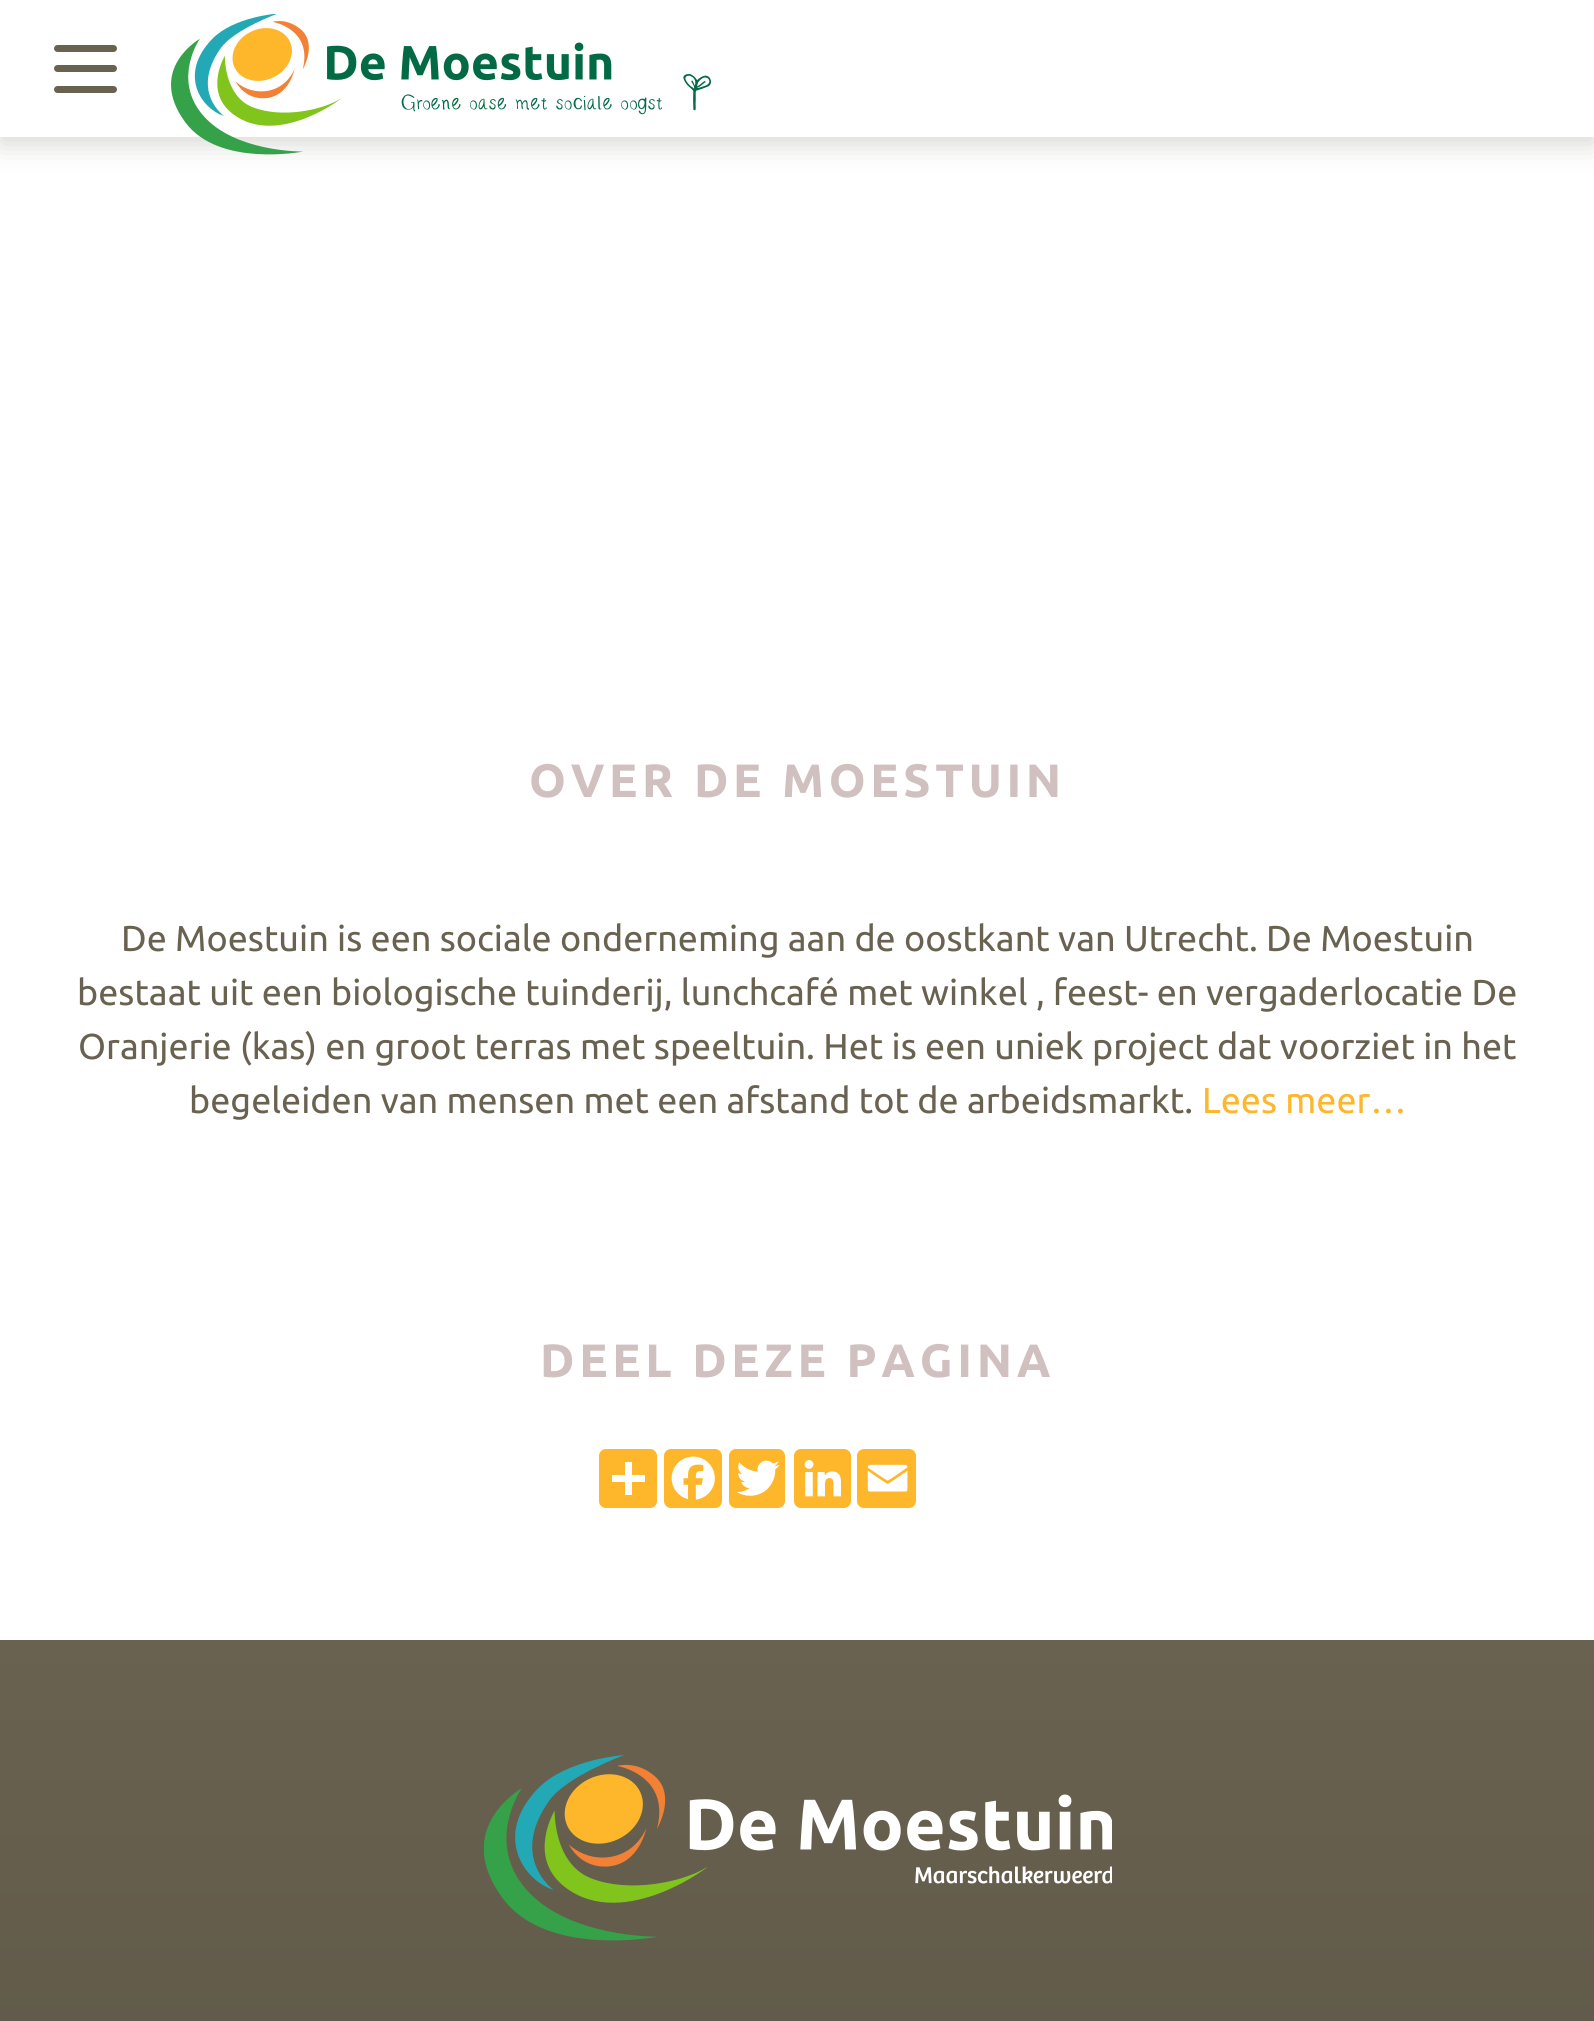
#include <cairo.h>
#include <math.h>
#include <stddef.h>


static void set_color(cairo_t *cr, unsigned color) {
    cairo_set_source_rgb(cr, (color >> 16) / 255.0, (color >> 8 & 255) / 255.0, (color & 255) / 255.0);
}

static void draw_text(cairo_t *cr, double x, double y, const char *s, const char *family, double size, int italic, int bold, unsigned color) {
    cairo_select_font_face(cr, family, italic ? CAIRO_FONT_SLANT_ITALIC : CAIRO_FONT_SLANT_NORMAL,
        bold ? CAIRO_FONT_WEIGHT_BOLD : CAIRO_FONT_WEIGHT_NORMAL);
    cairo_set_font_size(cr, size);
    set_color(cr, color);
    cairo_move_to(cr, x, y);
    cairo_show_text(cr, s);
}

static void draw_spaced(cairo_t *cr, double x, double y, const char *s, double letter, double word) {
    cairo_move_to(cr, x, y);
    while (*s) {
        char ch[5] = {0};
        int n = 0;
        do ch[n++] = *s++; while ((*s & 0xC0) == 0x80);
        cairo_show_text(cr, ch);
        cairo_rel_move_to(cr, letter + word * (*ch == ' '), 0);
    }
}

static void fill_rect(cairo_t *cr, double x, double y, double w, double h, unsigned color) {
    set_color(cr, color);
    cairo_rectangle(cr, x, y, w, h);
    cairo_fill(cr);
}

static void rounded_rect(cairo_t *cr, double x, double y, double w, double h, double r) {
    cairo_new_sub_path(cr);
    cairo_arc(cr, x + w - r, y + h - r, r, 0, M_PI / 2);
    cairo_arc(cr, x + r, y + h - r, r, M_PI / 2, M_PI);
    cairo_arc(cr, x + r, y + r, r, M_PI, 1.5 * M_PI);
    cairo_arc(cr, x + w - r, y + r, r, 1.5 * M_PI, 2 * M_PI);
    cairo_close_path(cr);
}

static void draw_shadow(cairo_t *cr, double x, double y, double w, double h, double r, double blur, double alpha) {
    cairo_push_group_with_content(cr, CAIRO_CONTENT_ALPHA);
    cairo_set_operator(cr, CAIRO_OPERATOR_SOURCE);
    for (int i = 15; i >= -15 && fmin(w, h) + blur * i / 3 > 0; i -= 2) {
        double e = blur * i / 6;
        cairo_set_source_rgba(cr, 0, 0, 0, alpha * erfc((i - 1) / 8.5) / 2);
        rounded_rect(cr, x - e, y - e, w + 2 * e, h + 2 * e, fmax(0, fmin(r + e + blur * .6, fmin(w, h) / 2 + e)));
        cairo_fill(cr);
    }
    cairo_pattern_t *soft = cairo_pop_group(cr);
    cairo_mask(cr, soft);
    cairo_pattern_destroy(soft);
}

static void draw_image(cairo_t *cr, const char *path, double x, double y, double w, double h) {
    cairo_surface_t *image = cairo_image_surface_create_from_png(path);
    cairo_save(cr);
    cairo_set_source_surface(cr, image, x, y);
    cairo_rectangle(cr, x, y, w, h);
    cairo_fill(cr);
    cairo_restore(cr);
    cairo_surface_destroy(image);
}

int main(void) {
    cairo_surface_t *surface = cairo_image_surface_create(CAIRO_FORMAT_RGB24, 1594, 2021);
    cairo_t *cr = cairo_create(surface);
    cairo_font_options_t *options = cairo_font_options_create();
    cairo_font_options_set_hint_metrics(options, CAIRO_HINT_METRICS_OFF);
    cairo_font_options_set_hint_style(options, CAIRO_HINT_STYLE_NONE);
    cairo_set_font_options(cr, options);
    cairo_set_miter_limit(cr, 4);
    cairo_pattern_t *gradient;
    set_color(cr, 0xFFFFFF);
    cairo_paint(cr);
    set_color(cr, 0x38342A);
    draw_shadow(cr, 0, 7, 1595, 137, 0, 13.5, 0.2);
    fill_rect(cr, 0, 0, 1594, 137, 0xFFFFFF);
    set_color(cr, 0x696250);
    rounded_rect(cr, 54, 65, 63, 7, 3.5);
    cairo_fill(cr);
    rounded_rect(cr, 54, 45, 63, 7, 3.5);
    cairo_fill(cr);
    rounded_rect(cr, 54, 86, 63, 7, 3.5);
    cairo_fill(cr);
    draw_image(cr, "assets/img1.png", 171, 14, 540, 141);
    cairo_select_font_face(cr, "Ubuntu", CAIRO_FONT_SLANT_NORMAL, CAIRO_FONT_WEIGHT_BOLD);
    cairo_set_font_size(cr, 46.75);
    set_color(cr, 0xD1C0C0);
    draw_spaced(cr, 529, 797, "OVER DE MOESTUIN", 4.7, 0);
    draw_text(cr, 121, 951, "De Moestuin is een sociale onderneming aan de oostkant van Utrecht. De Moestuin", "Ubuntu", 36, 0, 0, 0x696250);
    draw_text(cr, 77, 1005, "bestaat uit een biologische tuinderij, lunchcafé met winkel , feest- en vergaderlocatie De", "Ubuntu", 36, 0, 0, 0x696250);
    draw_text(cr, 78, 1059, "Oranjerie (kas) en groot terras met speeltuin. Het is een uniek project dat voorziet in het", "Ubuntu", 36, 0, 0, 0x696250);
    draw_text(cr, 189, 1113, "begeleiden van mensen met een afstand tot de arbeidsmarkt.", "Ubuntu", 36, 0, 0, 0x696250);
    draw_text(cr, 1202, 1113, "Lees meer…", "Ubuntu", 36, 0, 0, 0xFEB62B);
    cairo_select_font_face(cr, "Ubuntu", CAIRO_FONT_SLANT_NORMAL, CAIRO_FONT_WEIGHT_BOLD);
    cairo_set_font_size(cr, 46.75);
    set_color(cr, 0xD1C0C0);
    draw_spaced(cr, 540, 1377, "DEEL DEZE PAGINA", 4.7, 0);
    set_color(cr, 0xFEB62B);
    rounded_rect(cr, 599, 1449, 58, 59, 7);
    cairo_fill(cr);
    fill_rect(cr, 625, 1462, 7, 33, 0xFFFFFF);
    fill_rect(cr, 612, 1475, 33, 7, 0xFFFFFF);
    set_color(cr, 0xFEB62B);
    rounded_rect(cr, 664, 1449, 58, 59, 7);
    cairo_fill(cr);
    draw_image(cr, "assets/img2.png", 671, 1456, 44, 44);
    rounded_rect(cr, 729, 1449, 56, 59, 7);
    cairo_fill(cr);
    draw_image(cr, "assets/img3.png", 736, 1460, 44, 36);
    rounded_rect(cr, 794, 1449, 57, 59, 7);
    cairo_fill(cr);
    draw_image(cr, "assets/img4.png", 804, 1460, 37, 37);
    rounded_rect(cr, 857, 1449, 59, 59, 7);
    cairo_fill(cr);
    draw_image(cr, "assets/img5.png", 867, 1464, 41, 28);
    gradient = cairo_pattern_create_linear(798, 1640, 798, 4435);
    cairo_pattern_add_color_stop_rgba(gradient, 0, 0.412, 0.384, 0.314, 1);
    cairo_pattern_add_color_stop_rgba(gradient, 1, 0.208, 0.192, 0.157, 1);
    cairo_set_source(cr, gradient);
    cairo_pattern_destroy(gradient);
    cairo_rectangle(cr, 0, 1640, 1594, 381);
    cairo_fill(cr);
    draw_image(cr, "assets/img6.png", 484, 1755, 628, 186);
    cairo_surface_write_to_png(surface, "output.png");
    cairo_font_options_destroy(options);
    cairo_destroy(cr);
    cairo_surface_destroy(surface);
    return 0;
}
